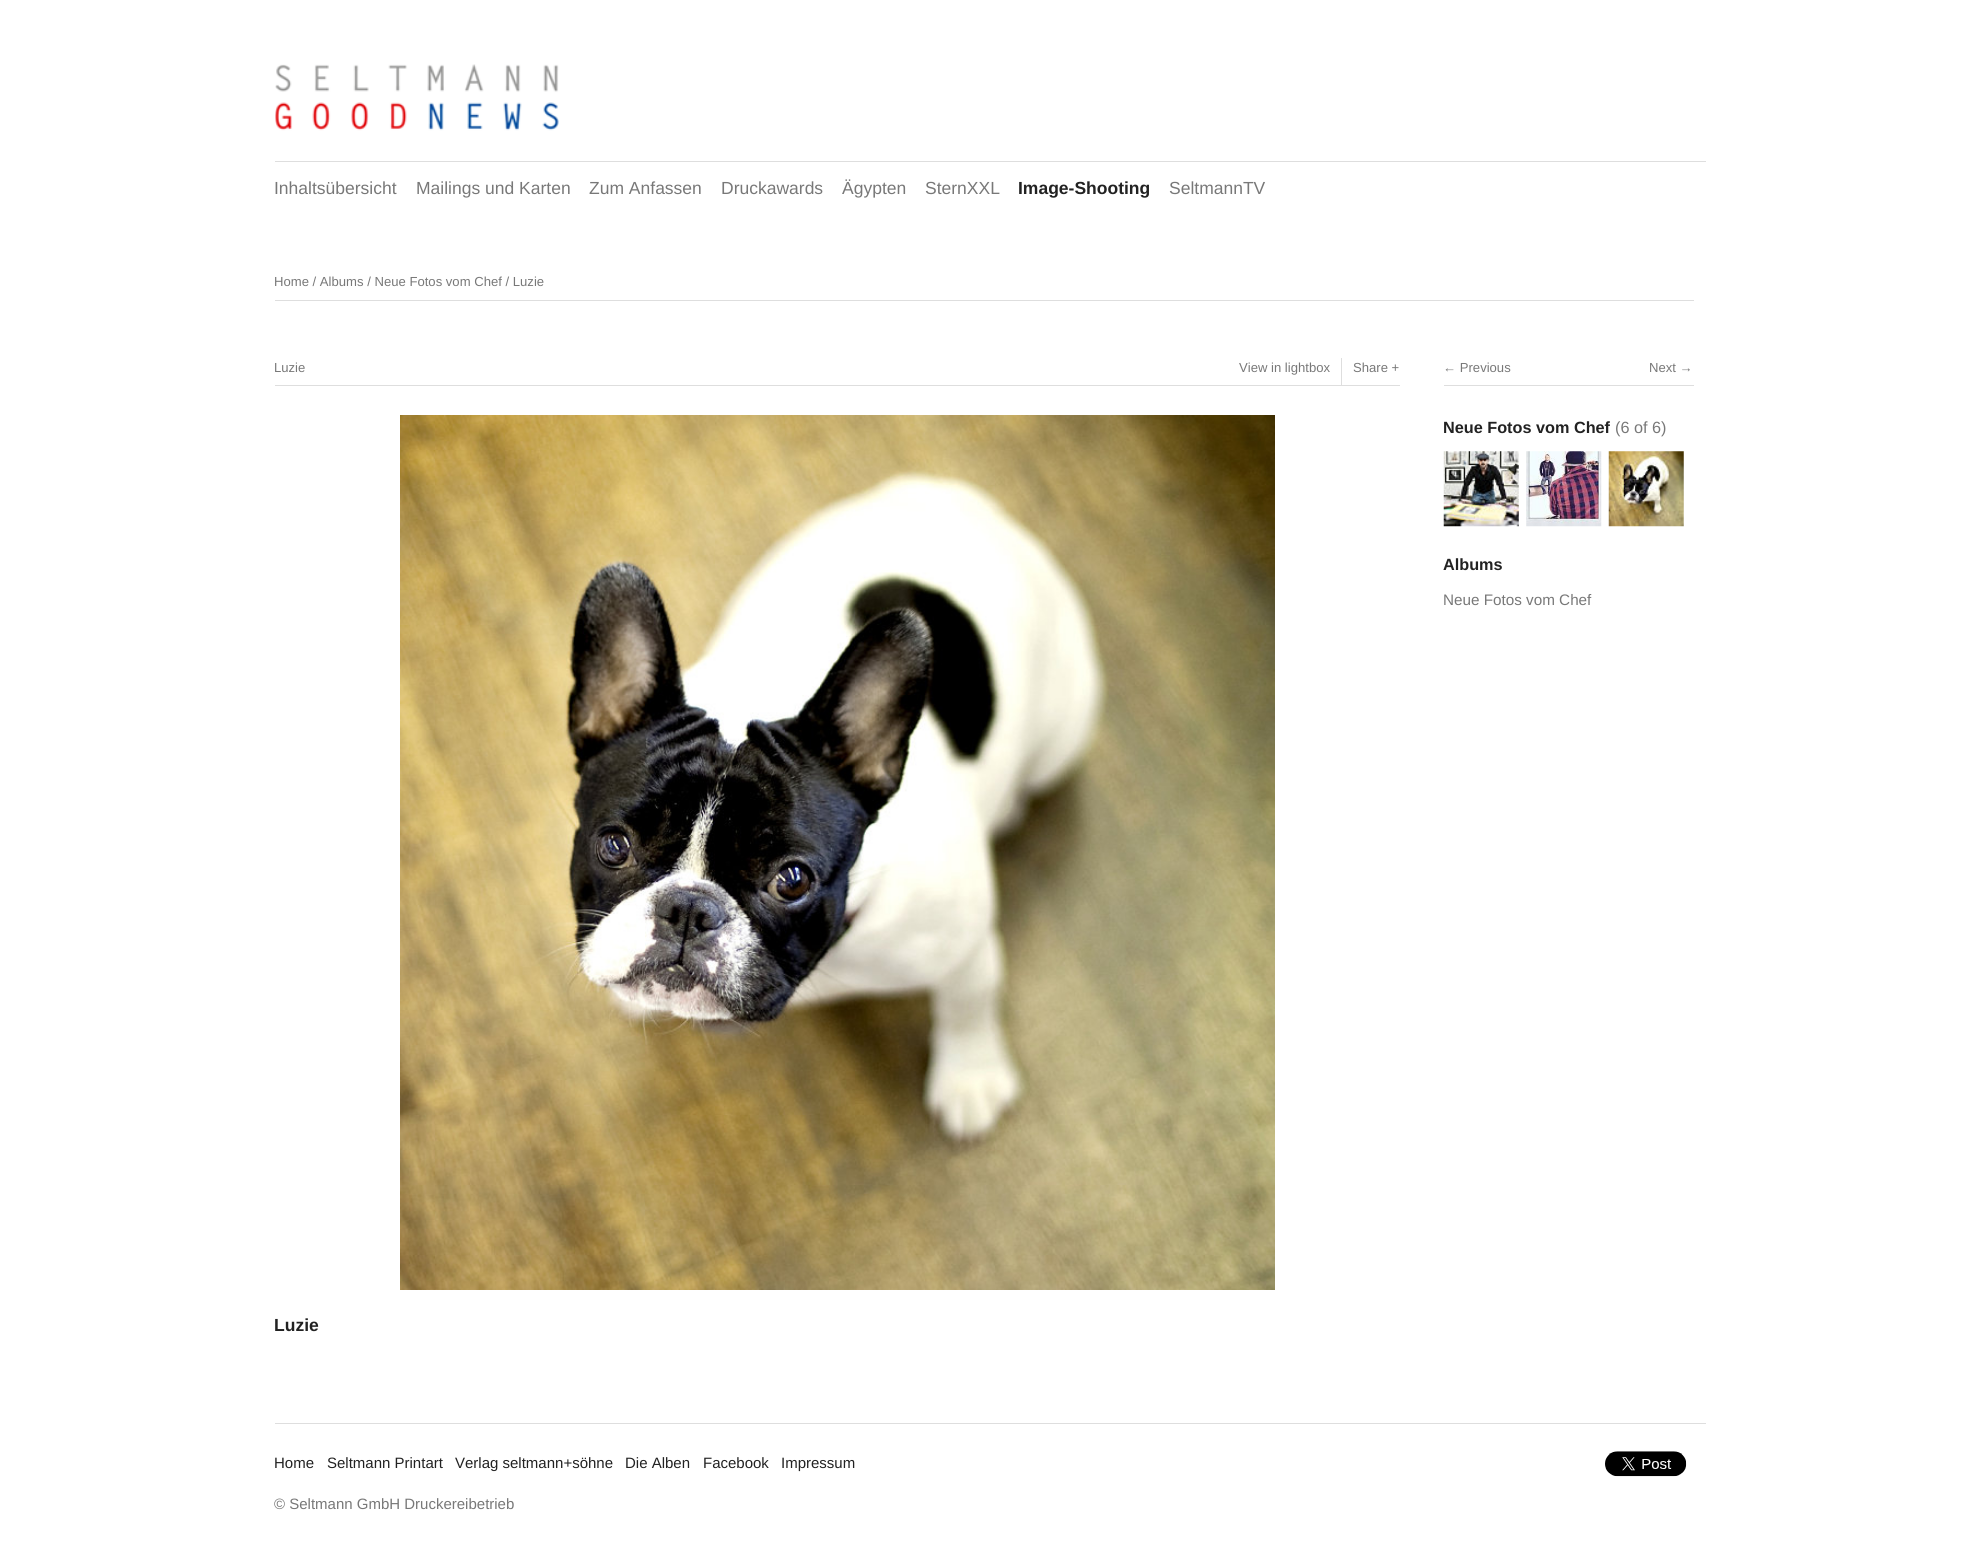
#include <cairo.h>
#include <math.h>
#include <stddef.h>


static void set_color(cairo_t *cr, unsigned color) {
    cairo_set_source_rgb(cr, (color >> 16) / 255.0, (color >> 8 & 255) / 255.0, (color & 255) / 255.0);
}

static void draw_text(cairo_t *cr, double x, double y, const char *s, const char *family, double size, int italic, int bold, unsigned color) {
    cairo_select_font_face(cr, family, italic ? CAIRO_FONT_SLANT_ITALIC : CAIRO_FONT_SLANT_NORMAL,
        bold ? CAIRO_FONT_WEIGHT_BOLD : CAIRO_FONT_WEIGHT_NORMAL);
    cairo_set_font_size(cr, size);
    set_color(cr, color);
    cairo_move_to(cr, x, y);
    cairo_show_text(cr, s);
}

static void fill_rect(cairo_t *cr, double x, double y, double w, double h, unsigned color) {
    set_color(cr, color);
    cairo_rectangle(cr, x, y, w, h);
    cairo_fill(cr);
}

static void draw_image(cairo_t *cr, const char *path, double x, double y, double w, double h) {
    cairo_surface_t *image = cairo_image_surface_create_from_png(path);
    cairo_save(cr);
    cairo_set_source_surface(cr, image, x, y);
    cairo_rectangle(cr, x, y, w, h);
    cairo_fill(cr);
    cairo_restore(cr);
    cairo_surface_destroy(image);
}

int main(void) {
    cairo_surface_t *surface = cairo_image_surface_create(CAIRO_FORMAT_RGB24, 1979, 1567);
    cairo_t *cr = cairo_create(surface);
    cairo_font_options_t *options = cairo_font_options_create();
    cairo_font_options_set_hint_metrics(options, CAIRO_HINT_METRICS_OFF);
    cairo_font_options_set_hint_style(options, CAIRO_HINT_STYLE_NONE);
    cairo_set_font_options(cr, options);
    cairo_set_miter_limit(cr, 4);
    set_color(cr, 0xFFFFFF);
    cairo_paint(cr);
    draw_image(cr, "assets/img1.png", 275, 64, 284, 67);
    fill_rect(cr, 275, 161, 1431, 1, 0xDEDEDE);
    draw_text(cr, 274, 194, "Inhaltsübersicht", "Liberation Sans", 17.5, 0, 0, 0x787878);
    draw_text(cr, 416, 194, "Mailings und Karten", "Liberation Sans", 17.5, 0, 0, 0x787878);
    draw_text(cr, 589, 194, "Zum Anfassen", "Liberation Sans", 17.5, 0, 0, 0x787878);
    draw_text(cr, 721, 194, "Druckawards", "Liberation Sans", 17.5, 0, 0, 0x787878);
    draw_text(cr, 842, 194, "Ägypten", "Liberation Sans", 17.5, 0, 0, 0x787878);
    draw_text(cr, 925, 194, "SternXXL", "Liberation Sans", 17.5, 0, 0, 0x787878);
    draw_text(cr, 1018, 194, "Image-Shooting", "Liberation Sans", 17.5, 0, 1, 0x222222);
    draw_text(cr, 1169, 194, "SeltmannTV", "Liberation Sans", 17.5, 0, 0, 0x787878);
    fill_rect(cr, 275, 300, 1419, 1, 0xDEDEDE);
    draw_text(cr, 274, 286, "Home / Albums / Neue Fotos vom Chef / Luzie", "Liberation Sans", 13.1, 0, 0, 0x787878);
    fill_rect(cr, 275, 385, 1125, 1, 0xDEDEDE);
    draw_text(cr, 274, 372, "Luzie", "Liberation Sans", 13.1, 0, 0, 0x787878);
    draw_text(cr, 1239, 372, "View in lightbox", "Liberation Sans", 13.1, 0, 0, 0x787878);
    fill_rect(cr, 1341, 358, 1, 27, 0xDEDEDE);
    draw_text(cr, 1353, 372, "Share +", "Liberation Sans", 13.1, 0, 0, 0x787878);
    draw_image(cr, "assets/img2.png", 400, 415, 875, 875);
    draw_text(cr, 274, 1331, "Luzie", "Liberation Sans", 17.5, 0, 1, 0x222222);
    fill_rect(cr, 1444, 385, 250, 1, 0xDEDEDE);
    draw_text(cr, 1443, 372, "← Previous", "Liberation Sans", 13.1, 0, 0, 0x787878);
    draw_text(cr, 1649, 372, "Next →", "Liberation Sans", 13.1, 0, 0, 0x787878);
    draw_text(cr, 1443, 433, "Neue Fotos vom Chef", "Liberation Sans", 16.25, 0, 1, 0x222222);
    draw_text(cr, 1615, 433, "(6 of 6)", "Liberation Sans", 16.25, 0, 0, 0x787878);
    draw_image(cr, "assets/img3.png", 1443, 451, 76, 76);
    draw_image(cr, "assets/img4.png", 1526, 451, 76, 76);
    draw_image(cr, "assets/img5.png", 1608, 451, 76, 76);
    draw_text(cr, 1443, 570, "Albums", "Liberation Sans", 16.25, 0, 1, 0x222222);
    draw_text(cr, 1443, 605, "Neue Fotos vom Chef", "Liberation Sans", 15.25, 0, 0, 0x787878);
    fill_rect(cr, 275, 1423, 1431, 1, 0xDEDEDE);
    draw_text(cr, 274, 1468, "Home", "Liberation Sans", 15, 0, 0, 0x222222);
    draw_text(cr, 327, 1468, "Seltmann Printart", "Liberation Sans", 15, 0, 0, 0x222222);
    draw_text(cr, 455, 1468, "Verlag seltmann+söhne", "Liberation Sans", 15, 0, 0, 0x222222);
    draw_text(cr, 625, 1468, "Die Alben", "Liberation Sans", 15, 0, 0, 0x222222);
    draw_text(cr, 703, 1468, "Facebook", "Liberation Sans", 15, 0, 0, 0x222222);
    draw_text(cr, 781, 1468, "Impressum", "Liberation Sans", 15, 0, 0, 0x222222);
    draw_image(cr, "assets/img6.png", 1605, 1451, 82, 26);
    draw_text(cr, 274, 1509, "© Seltmann GmbH Druckereibetrieb", "Liberation Sans", 15, 0, 0, 0x787878);
    cairo_surface_write_to_png(surface, "output.png");
    cairo_font_options_destroy(options);
    cairo_destroy(cr);
    cairo_surface_destroy(surface);
    return 0;
}
